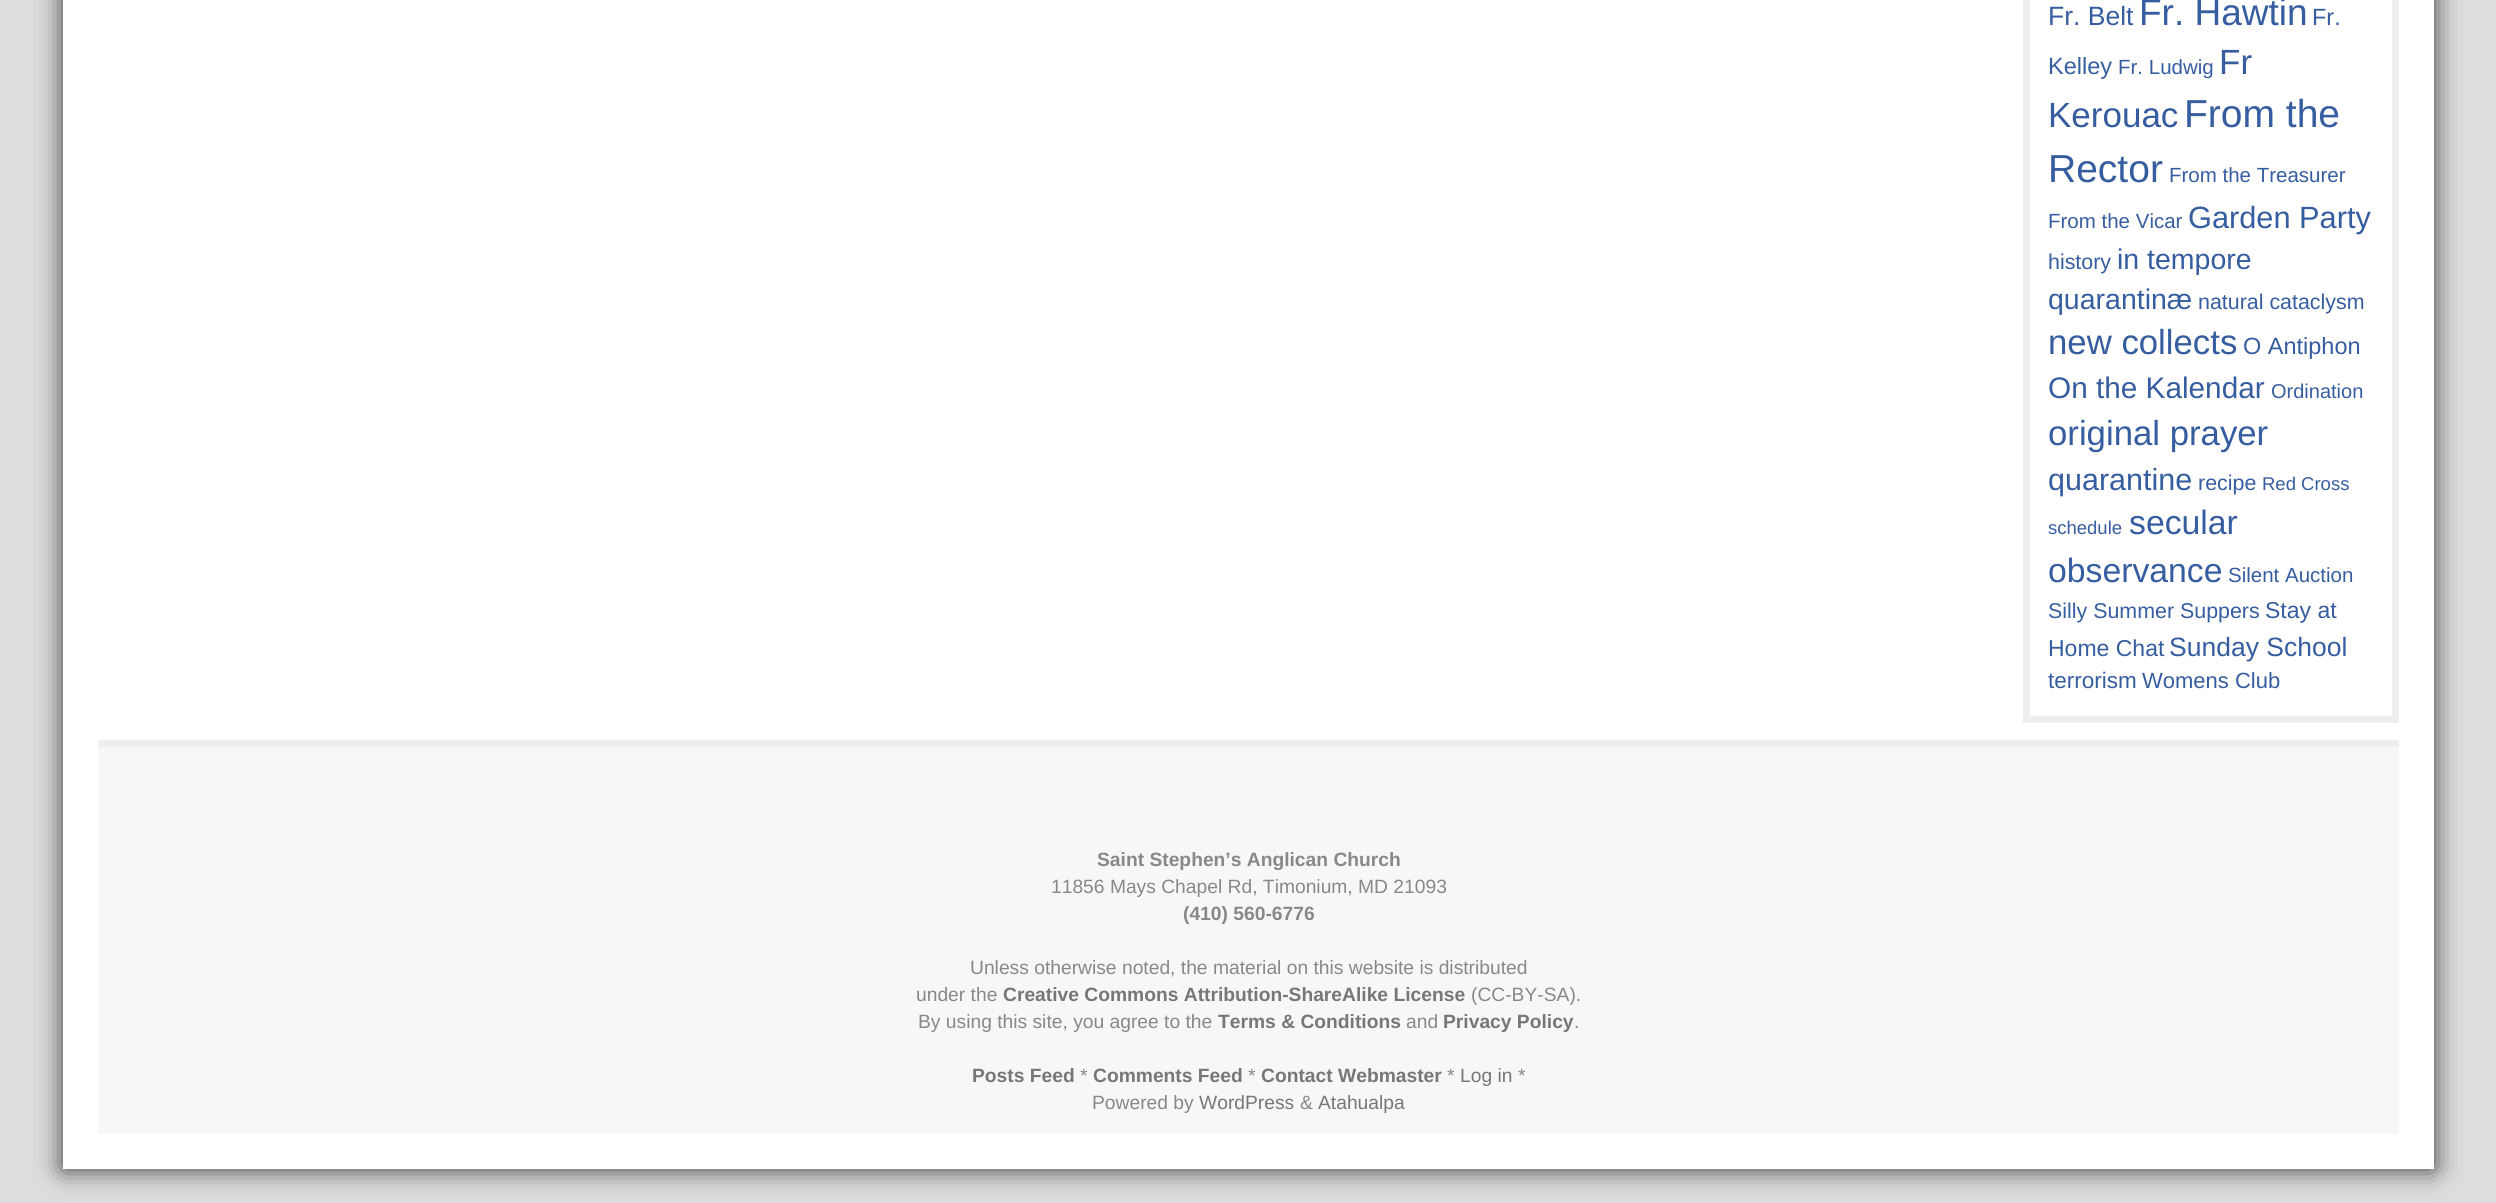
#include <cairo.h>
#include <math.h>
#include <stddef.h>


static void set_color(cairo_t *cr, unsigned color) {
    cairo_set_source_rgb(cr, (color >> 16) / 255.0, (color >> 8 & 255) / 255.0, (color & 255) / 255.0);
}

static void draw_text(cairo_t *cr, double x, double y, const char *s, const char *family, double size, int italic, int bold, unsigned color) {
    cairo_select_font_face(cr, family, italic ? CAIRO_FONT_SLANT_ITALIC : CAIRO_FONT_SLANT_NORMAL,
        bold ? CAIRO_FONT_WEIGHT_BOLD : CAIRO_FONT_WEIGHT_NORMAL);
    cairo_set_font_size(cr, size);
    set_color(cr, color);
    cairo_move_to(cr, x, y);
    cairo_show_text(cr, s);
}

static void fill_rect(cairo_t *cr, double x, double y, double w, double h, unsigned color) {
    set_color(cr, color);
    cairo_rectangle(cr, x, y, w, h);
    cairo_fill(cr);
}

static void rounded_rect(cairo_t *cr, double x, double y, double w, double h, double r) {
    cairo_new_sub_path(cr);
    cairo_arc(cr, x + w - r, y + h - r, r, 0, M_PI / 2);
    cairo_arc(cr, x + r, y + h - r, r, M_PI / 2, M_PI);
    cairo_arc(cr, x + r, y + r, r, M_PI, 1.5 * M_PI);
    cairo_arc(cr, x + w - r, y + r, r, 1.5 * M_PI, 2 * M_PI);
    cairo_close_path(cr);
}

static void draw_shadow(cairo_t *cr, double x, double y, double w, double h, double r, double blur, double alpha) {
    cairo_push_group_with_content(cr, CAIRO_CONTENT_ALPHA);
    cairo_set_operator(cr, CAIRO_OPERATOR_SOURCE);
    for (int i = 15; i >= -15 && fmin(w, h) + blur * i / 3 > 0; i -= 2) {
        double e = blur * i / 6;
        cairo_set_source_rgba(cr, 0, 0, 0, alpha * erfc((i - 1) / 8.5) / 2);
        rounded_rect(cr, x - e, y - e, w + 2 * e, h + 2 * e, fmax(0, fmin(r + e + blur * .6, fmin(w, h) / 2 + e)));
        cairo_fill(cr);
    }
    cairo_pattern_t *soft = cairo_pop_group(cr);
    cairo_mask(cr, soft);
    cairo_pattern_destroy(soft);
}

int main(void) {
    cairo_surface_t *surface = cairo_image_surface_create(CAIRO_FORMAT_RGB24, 2496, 1203);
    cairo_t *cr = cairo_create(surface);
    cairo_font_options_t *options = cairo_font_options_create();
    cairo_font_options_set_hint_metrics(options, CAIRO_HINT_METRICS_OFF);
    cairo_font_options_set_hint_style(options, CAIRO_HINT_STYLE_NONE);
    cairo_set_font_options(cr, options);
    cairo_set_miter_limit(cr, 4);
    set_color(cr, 0xDDDDDD);
    cairo_paint(cr);
    set_color(cr, 0x333333);
    draw_shadow(cr, 63, -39, 2371, 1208, 0, 13, 1);
    fill_rect(cr, 63, 0, 2371, 1169, 0xFFFFFF);
    cairo_rectangle(cr, 2026.5, -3.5, 369, 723);
    set_color(cr, 0xEEEEEE);
    cairo_set_line_width(cr, 7);
    cairo_stroke(cr);
    draw_text(cr, 2048, 25, "Fr. Belt", "Liberation Sans", 26.5, 0, 0, 0x365DA0);
    draw_text(cr, 2139, 25, "Fr. Hawtin", "Liberation Sans", 37, 0, 0, 0x365DA0);
    draw_text(cr, 2312, 25, "Fr.", "Liberation Sans", 23.5, 0, 0, 0x365DA0);
    draw_text(cr, 2048, 74, "Kelley", "Liberation Sans", 23.5, 0, 0, 0x365DA0);
    draw_text(cr, 2118, 74, "Fr. Ludwig", "Liberation Sans", 20.5, 0, 0, 0x365DA0);
    draw_text(cr, 2219, 74, "Fr", "Liberation Sans", 35, 0, 0, 0x365DA0);
    draw_text(cr, 2048, 127, "Kerouac", "Liberation Sans", 35, 0, 0, 0x365DA0);
    draw_text(cr, 2184, 127, "From the", "Liberation Sans", 39, 0, 0, 0x365DA0);
    draw_text(cr, 2048, 182, "Rector", "Liberation Sans", 39, 0, 0, 0x365DA0);
    draw_text(cr, 2169, 182, "From the Treasurer", "Liberation Sans", 20.5, 0, 0, 0x365DA0);
    draw_text(cr, 2048, 228, "From the Vicar", "Liberation Sans", 20.5, 0, 0, 0x365DA0);
    draw_text(cr, 2188, 228, "Garden Party", "Liberation Sans", 30.75, 0, 0, 0x365DA0);
    draw_text(cr, 2048, 269, "history", "Liberation Sans", 21.4, 0, 0, 0x365DA0);
    draw_text(cr, 2117, 269, "in tempore", "Liberation Sans", 28.5, 0, 0, 0x365DA0);
    draw_text(cr, 2048, 309, "quarantinæ", "Liberation Sans", 28.5, 0, 0, 0x365DA0);
    draw_text(cr, 2198, 309, "natural cataclysm", "Liberation Sans", 21.4, 0, 0, 0x365DA0);
    draw_text(cr, 2048, 354, "new collects", "Liberation Sans", 34.75, 0, 0, 0x365DA0);
    draw_text(cr, 2243, 354, "O Antiphon", "Liberation Sans", 23.5, 0, 0, 0x365DA0);
    draw_text(cr, 2048, 398, "On the Kalendar", "Liberation Sans", 29.75, 0, 0, 0x365DA0);
    draw_text(cr, 2271, 398, "Ordination", "Liberation Sans", 20, 0, 0, 0x365DA0);
    draw_text(cr, 2048, 445, "original prayer", "Liberation Sans", 34.75, 0, 0, 0x365DA0);
    draw_text(cr, 2048, 490, "quarantine", "Liberation Sans", 30.5, 0, 0, 0x365DA0);
    draw_text(cr, 2198, 490, "recipe", "Liberation Sans", 21.4, 0, 0, 0x365DA0);
    draw_text(cr, 2262, 490, "Red Cross", "Liberation Sans", 18.5, 0, 0, 0x365DA0);
    draw_text(cr, 2048, 534, "schedule", "Liberation Sans", 18.5, 0, 0, 0x365DA0);
    draw_text(cr, 2129, 534, "secular", "Liberation Sans", 33.75, 0, 0, 0x365DA0);
    draw_text(cr, 2048, 582, "observance", "Liberation Sans", 33.75, 0, 0, 0x365DA0);
    draw_text(cr, 2228, 582, "Silent Auction", "Liberation Sans", 20.5, 0, 0, 0x365DA0);
    draw_text(cr, 2048, 618, "Silly Summer Suppers", "Liberation Sans", 21.4, 0, 0, 0x365DA0);
    draw_text(cr, 2265, 618, "Stay at", "Liberation Sans", 23, 0, 0, 0x365DA0);
    draw_text(cr, 2048, 656, "Home Chat", "Liberation Sans", 23, 0, 0, 0x365DA0);
    draw_text(cr, 2169, 656, "Sunday School", "Liberation Sans", 26.5, 0, 0, 0x365DA0);
    draw_text(cr, 2048, 688, "terrorism", "Liberation Sans", 22.5, 0, 0, 0x365DA0);
    draw_text(cr, 2142, 688, "Womens Club", "Liberation Sans", 22, 0, 0, 0x365DA0);
    fill_rect(cr, 98, 747, 2301, 387, 0xF7F7F7);
    fill_rect(cr, 98, 740, 2301, 7, 0xEEEEEE);
    draw_text(cr, 1097, 866, "Saint Stephen’s Anglican Church", "Liberation Sans", 19.25, 0, 1, 0x888888);
    draw_text(cr, 1051, 893, "11856 Mays Chapel Rd, Timonium, MD 21093", "Liberation Sans", 19.25, 0, 0, 0x888888);
    draw_text(cr, 1183, 920, "(410) 560-6776", "Liberation Sans", 19.25, 0, 1, 0x888888);
    draw_text(cr, 970, 974, "Unless otherwise noted, the material on this website is distributed", "Liberation Sans", 19.25, 0, 0, 0x888888);
    draw_text(cr, 916, 1001, "under the", "Liberation Sans", 19.25, 0, 0, 0x888888);
    draw_text(cr, 1003, 1001, "Creative Commons Attribution-ShareAlike License", "Liberation Sans", 19.25, 0, 1, 0x777777);
    draw_text(cr, 1471, 1001, "(CC-BY-SA).", "Liberation Sans", 19.25, 0, 0, 0x888888);
    draw_text(cr, 918, 1028, "By using this site, you agree to the", "Liberation Sans", 19.25, 0, 0, 0x888888);
    draw_text(cr, 1218, 1028, "Terms & Conditions", "Liberation Sans", 19.25, 0, 1, 0x777777);
    draw_text(cr, 1406, 1028, "and", "Liberation Sans", 19.25, 0, 0, 0x888888);
    draw_text(cr, 1443, 1028, "Privacy Policy", "Liberation Sans", 19.25, 0, 1, 0x777777);
    draw_text(cr, 1574, 1028, ".", "Liberation Sans", 19.25, 0, 0, 0x888888);
    draw_text(cr, 972, 1082, "Posts Feed", "Liberation Sans", 19.25, 0, 1, 0x777777);
    draw_text(cr, 1080, 1082, "*", "Liberation Sans", 19.25, 0, 0, 0x888888);
    draw_text(cr, 1093, 1082, "Comments Feed", "Liberation Sans", 19.25, 0, 1, 0x777777);
    draw_text(cr, 1248, 1082, "*", "Liberation Sans", 19.25, 0, 0, 0x888888);
    draw_text(cr, 1261, 1082, "Contact Webmaster", "Liberation Sans", 19.25, 0, 1, 0x777777);
    draw_text(cr, 1447, 1082, "*", "Liberation Sans", 19.25, 0, 0, 0x888888);
    draw_text(cr, 1460, 1082, "Log in", "Liberation Sans", 19.25, 0, 0, 0x777777);
    draw_text(cr, 1518, 1082, "*", "Liberation Sans", 19.25, 0, 0, 0x888888);
    draw_text(cr, 1092, 1109, "Powered by", "Liberation Sans", 19.25, 0, 0, 0x888888);
    draw_text(cr, 1199, 1109, "WordPress", "Liberation Sans", 19.25, 0, 0, 0x777777);
    draw_text(cr, 1300, 1109, "&", "Liberation Sans", 19.25, 0, 0, 0x888888);
    draw_text(cr, 1318, 1109, "Atahualpa", "Liberation Sans", 19.25, 0, 0, 0x777777);
    cairo_surface_write_to_png(surface, "output.png");
    cairo_font_options_destroy(options);
    cairo_destroy(cr);
    cairo_surface_destroy(surface);
    return 0;
}
